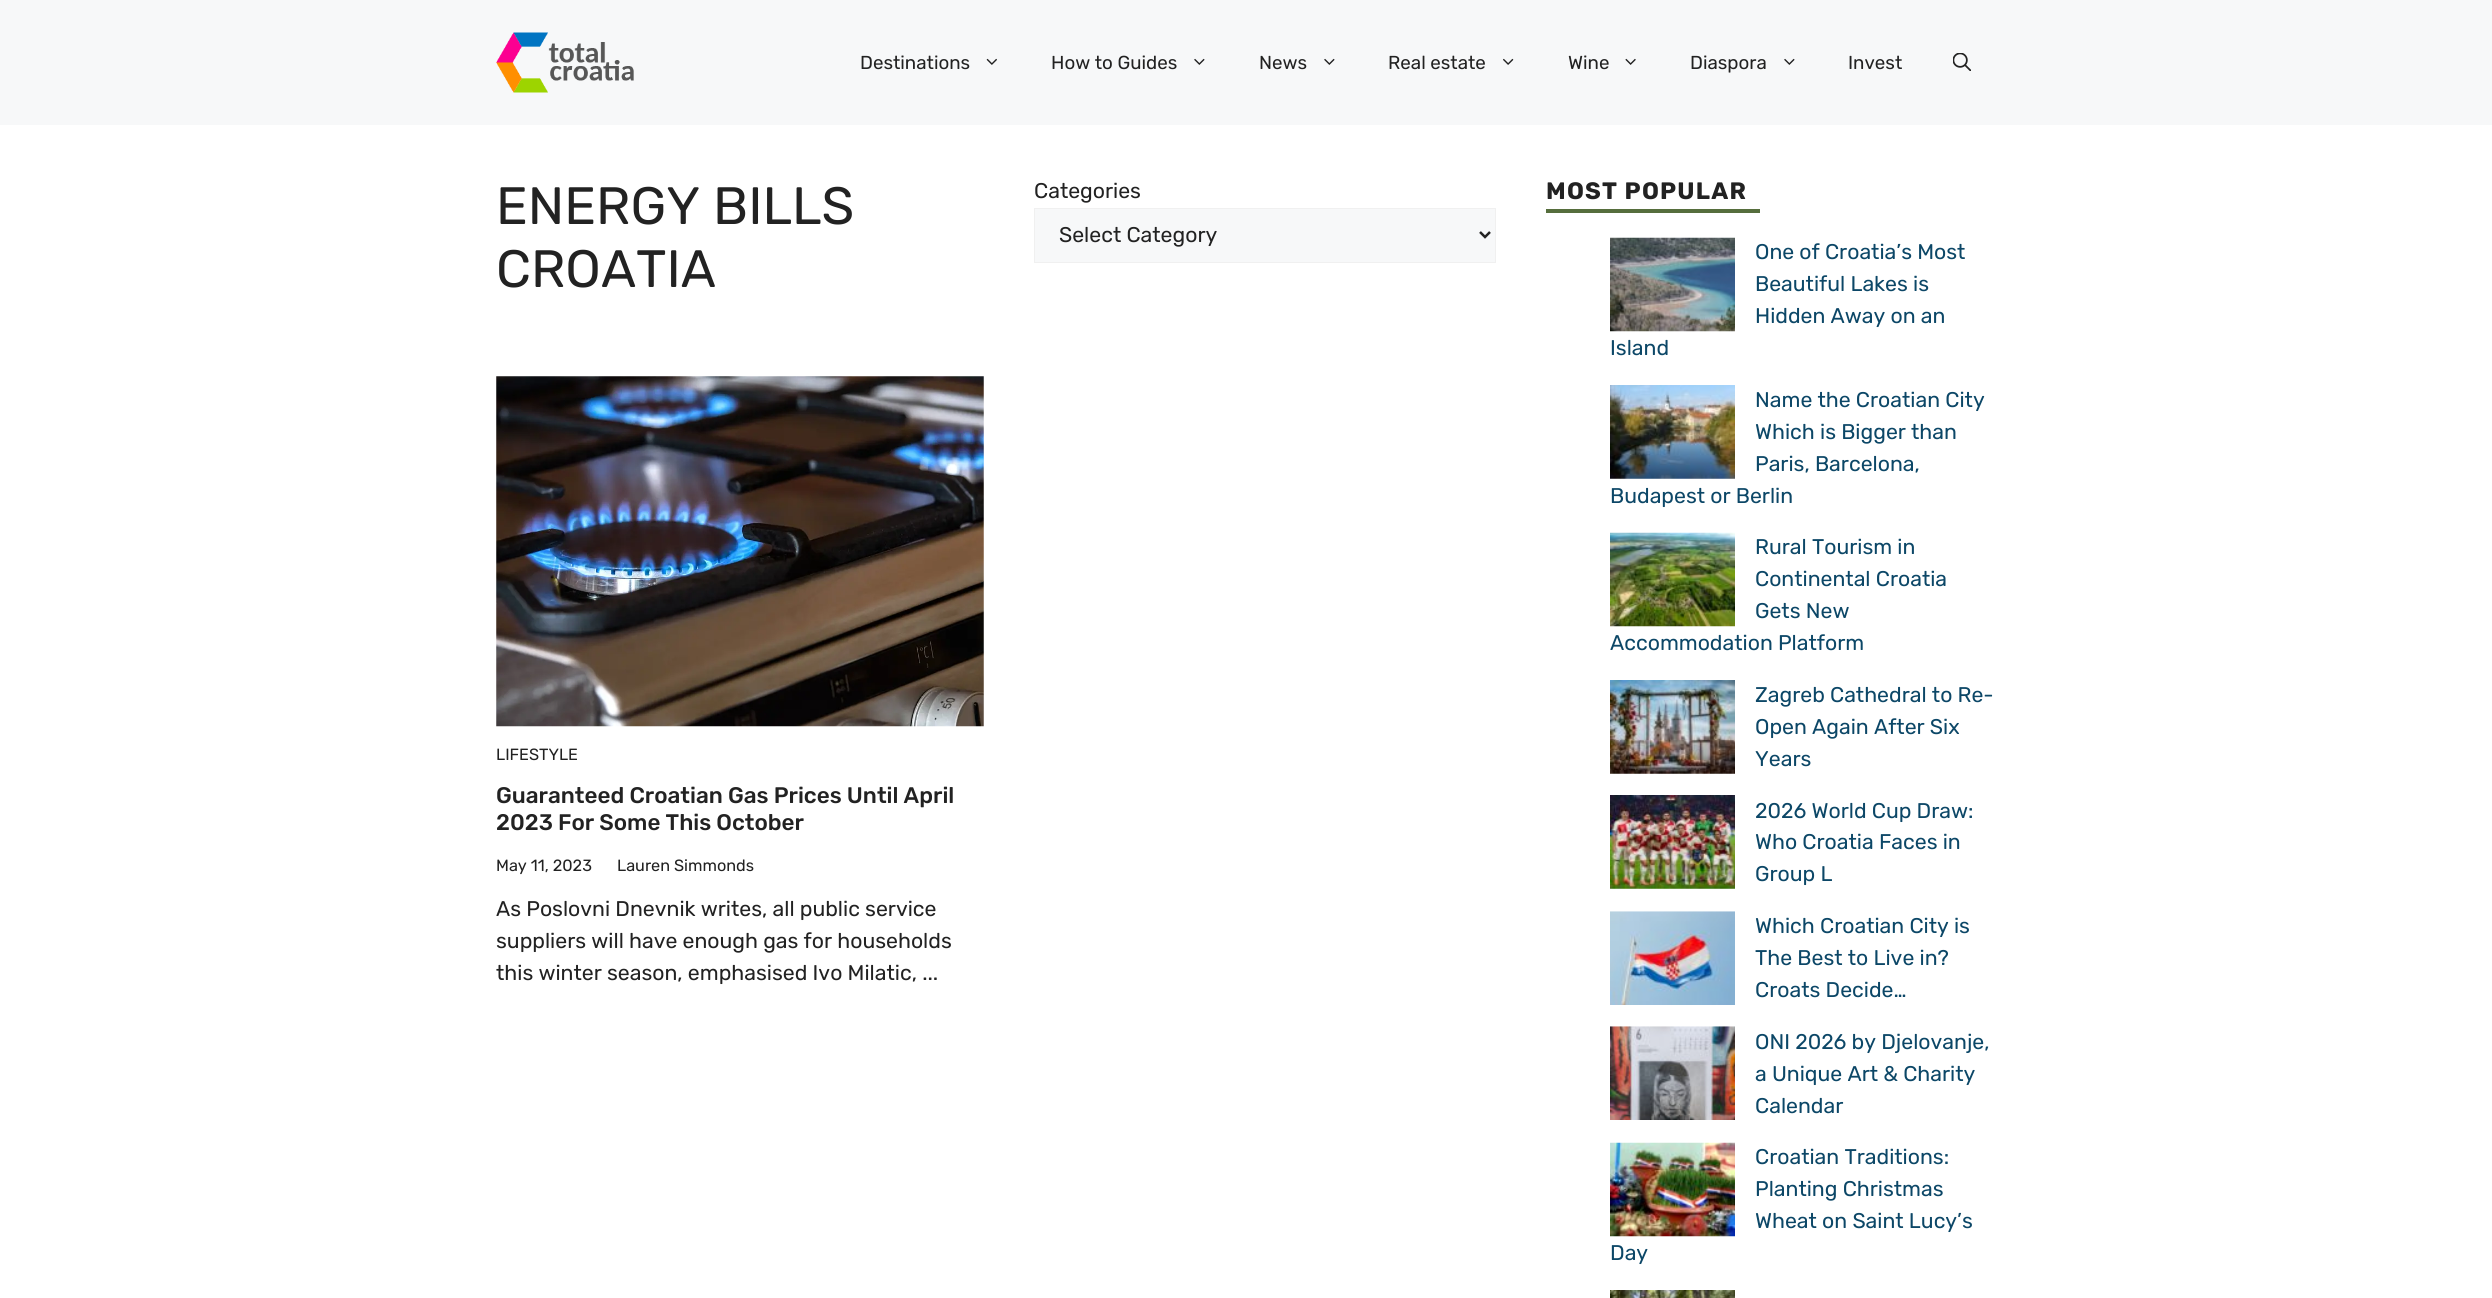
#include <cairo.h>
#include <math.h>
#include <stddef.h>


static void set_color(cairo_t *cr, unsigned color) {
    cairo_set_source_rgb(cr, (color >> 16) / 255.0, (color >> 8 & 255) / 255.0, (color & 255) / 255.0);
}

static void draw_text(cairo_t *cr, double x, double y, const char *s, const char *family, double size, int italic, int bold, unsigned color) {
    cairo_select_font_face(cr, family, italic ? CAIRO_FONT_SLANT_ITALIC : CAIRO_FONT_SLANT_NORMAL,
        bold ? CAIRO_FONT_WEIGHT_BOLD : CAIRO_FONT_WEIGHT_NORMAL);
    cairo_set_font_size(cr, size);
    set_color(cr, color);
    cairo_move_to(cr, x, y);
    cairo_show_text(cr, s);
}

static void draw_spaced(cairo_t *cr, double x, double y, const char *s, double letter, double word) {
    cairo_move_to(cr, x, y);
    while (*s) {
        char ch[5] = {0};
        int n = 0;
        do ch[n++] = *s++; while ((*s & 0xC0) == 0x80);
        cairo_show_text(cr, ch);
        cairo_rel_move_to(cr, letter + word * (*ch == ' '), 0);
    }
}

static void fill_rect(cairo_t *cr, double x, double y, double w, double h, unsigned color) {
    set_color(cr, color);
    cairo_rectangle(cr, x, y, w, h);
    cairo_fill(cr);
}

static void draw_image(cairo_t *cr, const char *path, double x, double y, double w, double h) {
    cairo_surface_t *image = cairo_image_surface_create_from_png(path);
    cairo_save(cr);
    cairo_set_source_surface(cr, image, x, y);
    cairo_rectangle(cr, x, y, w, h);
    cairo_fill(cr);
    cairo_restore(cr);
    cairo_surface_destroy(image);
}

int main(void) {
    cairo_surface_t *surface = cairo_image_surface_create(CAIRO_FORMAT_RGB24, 2492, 1298);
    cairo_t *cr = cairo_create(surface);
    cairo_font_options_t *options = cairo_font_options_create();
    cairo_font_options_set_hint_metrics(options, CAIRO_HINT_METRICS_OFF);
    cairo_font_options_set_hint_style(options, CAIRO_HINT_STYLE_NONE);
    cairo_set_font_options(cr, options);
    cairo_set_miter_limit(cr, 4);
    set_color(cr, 0xFFFFFF);
    cairo_paint(cr);
    fill_rect(cr, 0, 0, 2492, 125, 0xF7F8F9);
    draw_image(cr, "assets/img1.png", 496, 32, 138, 61);
    draw_text(cr, 860, 69, "Destinations", "Rubik", 18.75, 0, 0, 0x222222);
    draw_image(cr, "assets/img2.png", 986, 58, 11, 7);
    draw_text(cr, 1051, 69, "How to Guides", "Rubik", 18.75, 0, 0, 0x222222);
    draw_image(cr, "assets/img3.png", 1194, 58, 11, 7);
    draw_text(cr, 1259, 69, "News", "Rubik", 18.75, 0, 0, 0x222222);
    draw_image(cr, "assets/img3.png", 1324, 58, 11, 7);
    draw_text(cr, 1388, 69, "Real estate", "Rubik", 18.75, 0, 0, 0x222222);
    draw_image(cr, "assets/img4.png", 1503, 58, 11, 7);
    draw_text(cr, 1568, 69, "Wine", "Rubik", 18.75, 0, 0, 0x222222);
    draw_image(cr, "assets/img5.png", 1625, 58, 11, 7);
    draw_text(cr, 1690, 69, "Diaspora", "Rubik", 18.75, 0, 0, 0x222222);
    draw_image(cr, "assets/img3.png", 1784, 58, 11, 7);
    draw_text(cr, 1848, 69, "Invest", "Rubik", 18.75, 0, 0, 0x222222);
    draw_image(cr, "assets/img6.png", 1953, 53, 18, 18);
    draw_text(cr, 496, 224, "ENERGY BILLS", "Rubik", 52.5, 0, 0, 0x222222);
    draw_text(cr, 496, 287, "CROATIA", "Rubik", 52.5, 0, 0, 0x222222);
    draw_text(cr, 1034, 198, "Categories", "Rubik", 21.25, 0, 0, 0x222222);
    set_color(cr, 0xF7F8F9);
    cairo_rectangle(cr, 1034.5, 208.5, 461, 54);
    cairo_fill_preserve(cr);
    set_color(cr, 0xF0F0F0);
    cairo_set_line_width(cr, 1);
    cairo_stroke(cr);
    cairo_new_path(cr);
    cairo_move_to(cr, 1480, 232);
    cairo_line_to(cr, 1485, 237);
    cairo_line_to(cr, 1490, 232);
    set_color(cr, 0x222222);
    cairo_set_line_width(cr, 2.5);
    cairo_stroke(cr);
    draw_text(cr, 1059, 242, "Select Category", "Rubik", 21.25, 0, 0, 0x222222);
    draw_image(cr, "assets/img7.png", 496, 376, 488, 351);
    draw_text(cr, 496, 760, "LIFESTYLE", "Rubik", 16.25, 0, 0, 0x222222);
    draw_text(cr, 496, 803, "Guaranteed Croatian Gas Prices Until April", "Rubik Medium", 22.5, 0, 0, 0x222222);
    draw_text(cr, 496, 830, "2023 For Some This October", "Rubik Medium", 22.5, 0, 0, 0x222222);
    draw_text(cr, 496, 871, "May 11, 2023", "Rubik", 16.25, 0, 0, 0x222222);
    draw_text(cr, 617, 871, "Lauren Simmonds", "Rubik", 16.25, 0, 0, 0x222222);
    draw_text(cr, 496, 916, "As Poslovni Dnevnik writes, all public service", "Rubik", 21.25, 0, 0, 0x222222);
    draw_text(cr, 496, 948, "suppliers will have enough gas for households", "Rubik", 21.25, 0, 0, 0x222222);
    draw_text(cr, 496, 980, "this winter season, emphasised Ivo Milatic, ...", "Rubik", 21.25, 0, 0, 0x222222);
    cairo_select_font_face(cr, "Rubik", CAIRO_FONT_SLANT_NORMAL, CAIRO_FONT_WEIGHT_BOLD);
    cairo_set_font_size(cr, 23.75);
    draw_spaced(cr, 1546, 199, "MOST POPULAR", 1.25, 0);
    fill_rect(cr, 1546, 209, 214, 4, 0x566E3D);
    draw_image(cr, "assets/img8.png", 1610, 237, 125, 95);
    draw_text(cr, 1755, 259, "One of Croatia’s Most", "Rubik", 21.25, 0, 0, 0x0C4767);
    draw_text(cr, 1755, 291, "Beautiful Lakes is", "Rubik", 21.25, 0, 0, 0x0C4767);
    draw_text(cr, 1755, 323, "Hidden Away on an", "Rubik", 21.25, 0, 0, 0x0C4767);
    draw_text(cr, 1610, 355, "Island", "Rubik", 21.25, 0, 0, 0x0C4767);
    draw_image(cr, "assets/img9.png", 1610, 385, 125, 94);
    draw_text(cr, 1755, 407, "Name the Croatian City", "Rubik", 21.25, 0, 0, 0x0C4767);
    draw_text(cr, 1755, 439, "Which is Bigger than", "Rubik", 21.25, 0, 0, 0x0C4767);
    draw_text(cr, 1755, 471, "Paris, Barcelona,", "Rubik", 21.25, 0, 0, 0x0C4767);
    draw_text(cr, 1610, 503, "Budapest or Berlin", "Rubik", 21.25, 0, 0, 0x0C4767);
    draw_image(cr, "assets/img10.png", 1610, 532, 125, 95);
    draw_text(cr, 1755, 554, "Rural Tourism in", "Rubik", 21.25, 0, 0, 0x0C4767);
    draw_text(cr, 1755, 586, "Continental Croatia", "Rubik", 21.25, 0, 0, 0x0C4767);
    draw_text(cr, 1755, 618, "Gets New", "Rubik", 21.25, 0, 0, 0x0C4767);
    draw_text(cr, 1610, 650, "Accommodation Platform", "Rubik", 21.25, 0, 0, 0x0C4767);
    draw_image(cr, "assets/img11.png", 1610, 680, 125, 94);
    draw_text(cr, 1755, 702, "Zagreb Cathedral to Re-", "Rubik", 21.25, 0, 0, 0x0C4767);
    draw_text(cr, 1755, 734, "Open Again After Six", "Rubik", 21.25, 0, 0, 0x0C4767);
    draw_text(cr, 1755, 766, "Years", "Rubik", 21.25, 0, 0, 0x0C4767);
    draw_image(cr, "assets/img12.png", 1610, 795, 125, 94);
    draw_text(cr, 1755, 818, "2026 World Cup Draw:", "Rubik", 21.25, 0, 0, 0x0C4767);
    draw_text(cr, 1755, 849, "Who Croatia Faces in", "Rubik", 21.25, 0, 0, 0x0C4767);
    draw_text(cr, 1755, 881, "Group L", "Rubik", 21.25, 0, 0, 0x0C4767);
    draw_image(cr, "assets/img13.png", 1610, 911, 125, 94);
    draw_text(cr, 1755, 933, "Which Croatian City is", "Rubik", 21.25, 0, 0, 0x0C4767);
    draw_text(cr, 1755, 965, "The Best to Live in?", "Rubik", 21.25, 0, 0, 0x0C4767);
    draw_text(cr, 1755, 997, "Croats Decide…", "Rubik", 21.25, 0, 0, 0x0C4767);
    draw_image(cr, "assets/img14.png", 1610, 1026, 125, 94);
    draw_text(cr, 1755, 1049, "ONI 2026 by Djelovanje,", "Rubik", 21.25, 0, 0, 0x0C4767);
    draw_text(cr, 1755, 1081, "a Unique Art & Charity", "Rubik", 21.25, 0, 0, 0x0C4767);
    draw_text(cr, 1755, 1113, "Calendar", "Rubik", 21.25, 0, 0, 0x0C4767);
    draw_image(cr, "assets/img15.png", 1610, 1142, 125, 95);
    draw_text(cr, 1755, 1164, "Croatian Traditions:", "Rubik", 21.25, 0, 0, 0x0C4767);
    draw_text(cr, 1755, 1196, "Planting Christmas", "Rubik", 21.25, 0, 0, 0x0C4767);
    draw_text(cr, 1755, 1228, "Wheat on Saint Lucy’s", "Rubik", 21.25, 0, 0, 0x0C4767);
    draw_text(cr, 1610, 1260, "Day", "Rubik", 21.25, 0, 0, 0x0C4767);
    draw_image(cr, "assets/img16.png", 1610, 1290, 125, 8);
    cairo_surface_write_to_png(surface, "output.png");
    cairo_font_options_destroy(options);
    cairo_destroy(cr);
    cairo_surface_destroy(surface);
    return 0;
}
